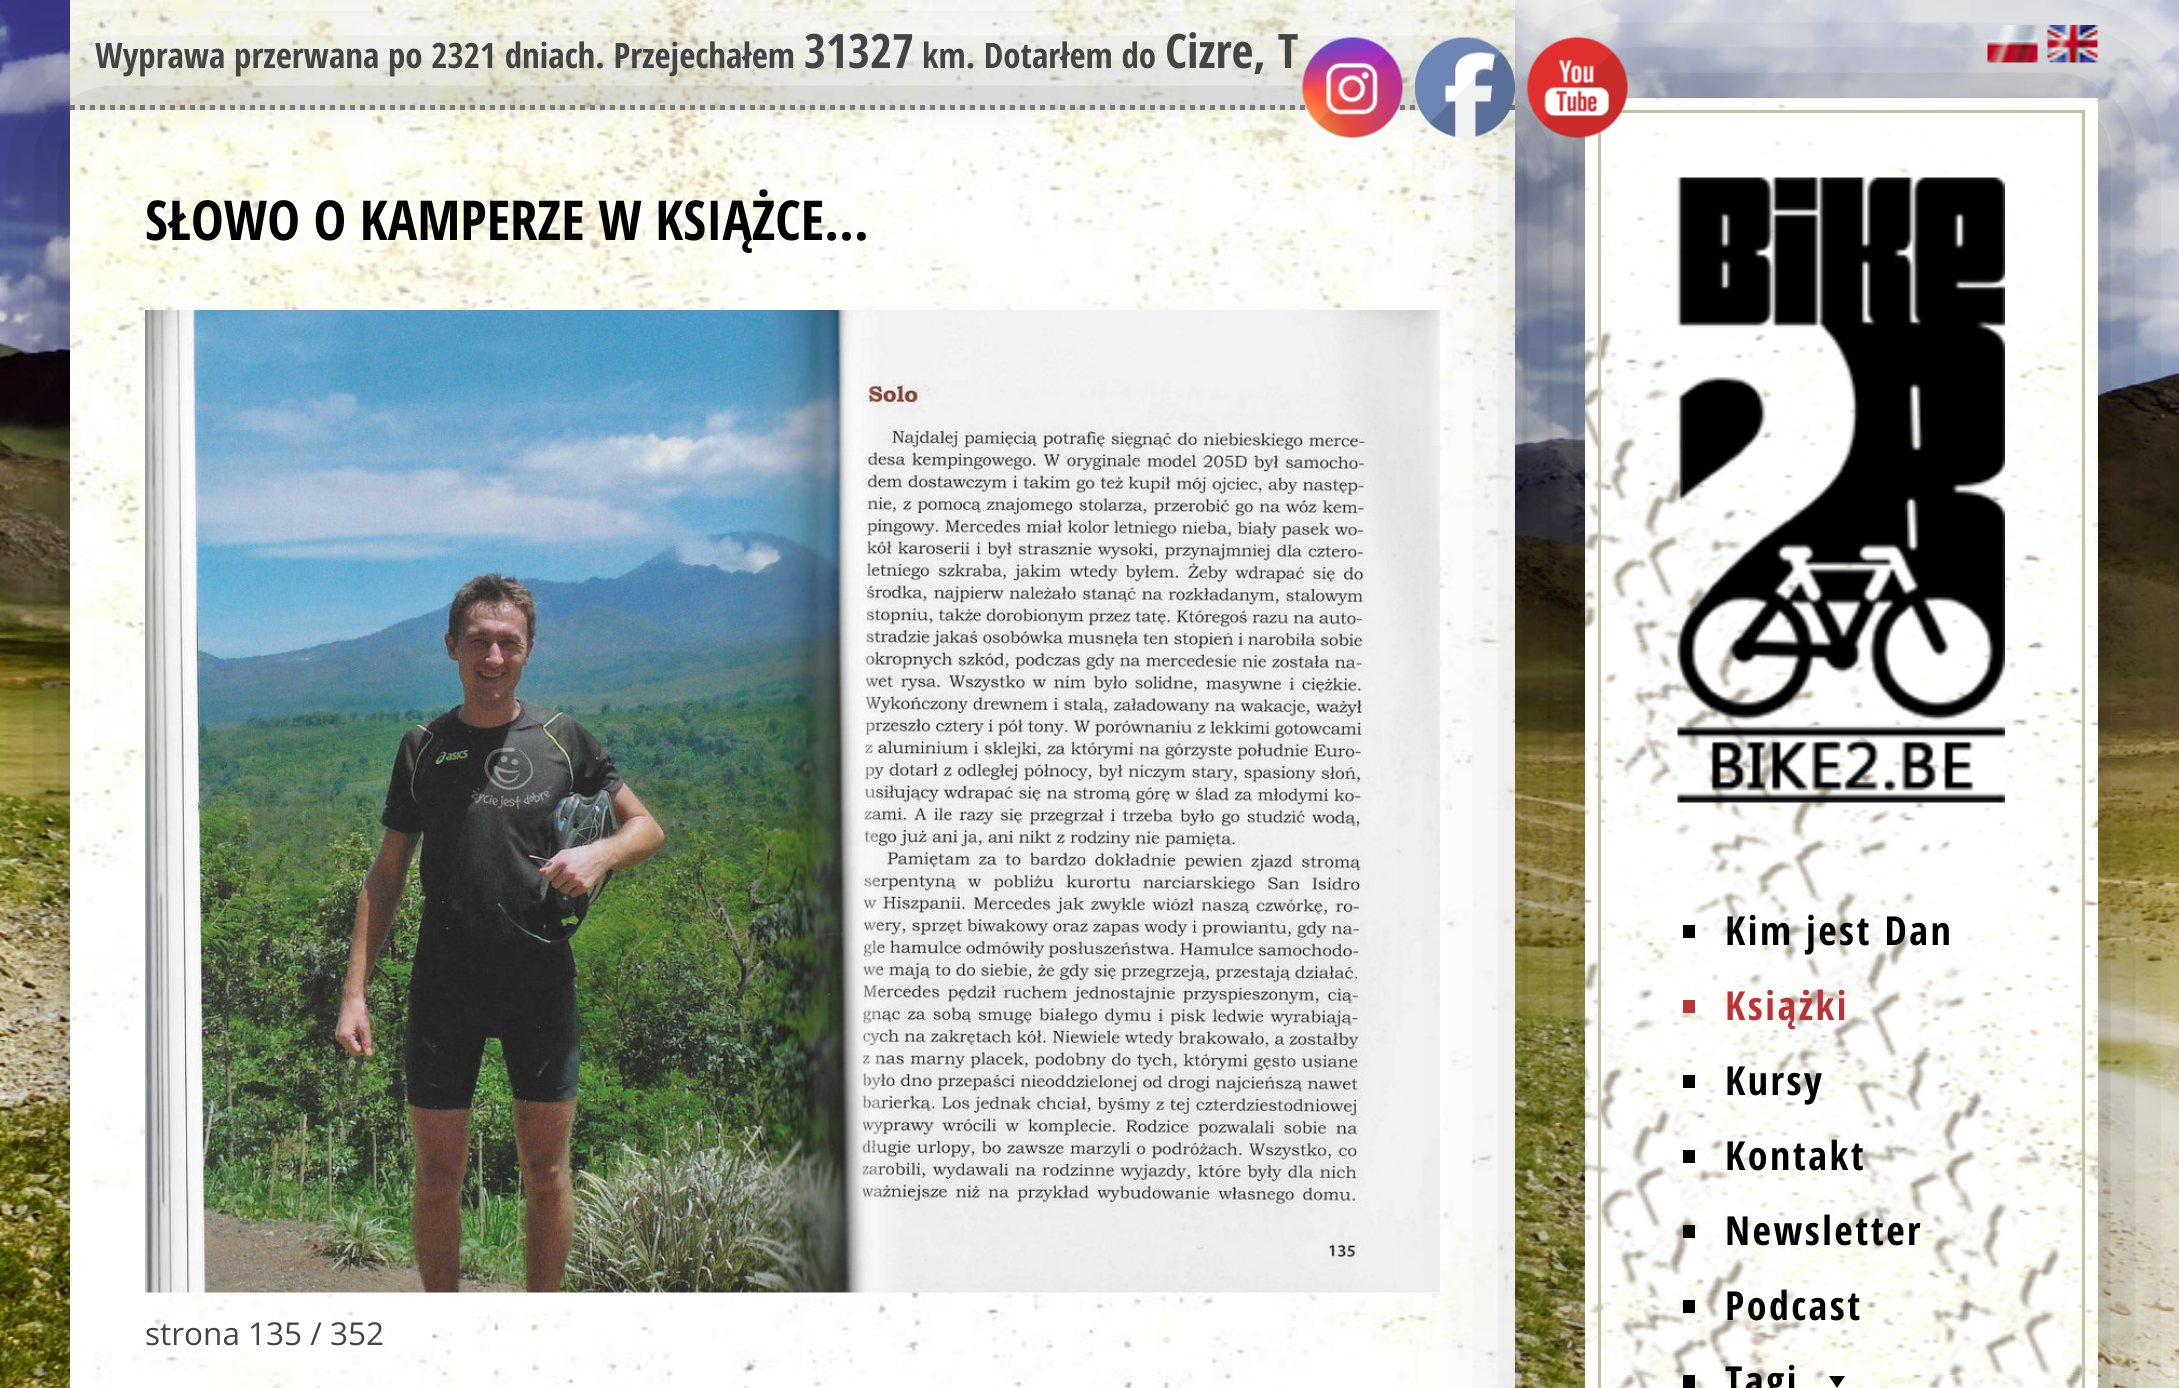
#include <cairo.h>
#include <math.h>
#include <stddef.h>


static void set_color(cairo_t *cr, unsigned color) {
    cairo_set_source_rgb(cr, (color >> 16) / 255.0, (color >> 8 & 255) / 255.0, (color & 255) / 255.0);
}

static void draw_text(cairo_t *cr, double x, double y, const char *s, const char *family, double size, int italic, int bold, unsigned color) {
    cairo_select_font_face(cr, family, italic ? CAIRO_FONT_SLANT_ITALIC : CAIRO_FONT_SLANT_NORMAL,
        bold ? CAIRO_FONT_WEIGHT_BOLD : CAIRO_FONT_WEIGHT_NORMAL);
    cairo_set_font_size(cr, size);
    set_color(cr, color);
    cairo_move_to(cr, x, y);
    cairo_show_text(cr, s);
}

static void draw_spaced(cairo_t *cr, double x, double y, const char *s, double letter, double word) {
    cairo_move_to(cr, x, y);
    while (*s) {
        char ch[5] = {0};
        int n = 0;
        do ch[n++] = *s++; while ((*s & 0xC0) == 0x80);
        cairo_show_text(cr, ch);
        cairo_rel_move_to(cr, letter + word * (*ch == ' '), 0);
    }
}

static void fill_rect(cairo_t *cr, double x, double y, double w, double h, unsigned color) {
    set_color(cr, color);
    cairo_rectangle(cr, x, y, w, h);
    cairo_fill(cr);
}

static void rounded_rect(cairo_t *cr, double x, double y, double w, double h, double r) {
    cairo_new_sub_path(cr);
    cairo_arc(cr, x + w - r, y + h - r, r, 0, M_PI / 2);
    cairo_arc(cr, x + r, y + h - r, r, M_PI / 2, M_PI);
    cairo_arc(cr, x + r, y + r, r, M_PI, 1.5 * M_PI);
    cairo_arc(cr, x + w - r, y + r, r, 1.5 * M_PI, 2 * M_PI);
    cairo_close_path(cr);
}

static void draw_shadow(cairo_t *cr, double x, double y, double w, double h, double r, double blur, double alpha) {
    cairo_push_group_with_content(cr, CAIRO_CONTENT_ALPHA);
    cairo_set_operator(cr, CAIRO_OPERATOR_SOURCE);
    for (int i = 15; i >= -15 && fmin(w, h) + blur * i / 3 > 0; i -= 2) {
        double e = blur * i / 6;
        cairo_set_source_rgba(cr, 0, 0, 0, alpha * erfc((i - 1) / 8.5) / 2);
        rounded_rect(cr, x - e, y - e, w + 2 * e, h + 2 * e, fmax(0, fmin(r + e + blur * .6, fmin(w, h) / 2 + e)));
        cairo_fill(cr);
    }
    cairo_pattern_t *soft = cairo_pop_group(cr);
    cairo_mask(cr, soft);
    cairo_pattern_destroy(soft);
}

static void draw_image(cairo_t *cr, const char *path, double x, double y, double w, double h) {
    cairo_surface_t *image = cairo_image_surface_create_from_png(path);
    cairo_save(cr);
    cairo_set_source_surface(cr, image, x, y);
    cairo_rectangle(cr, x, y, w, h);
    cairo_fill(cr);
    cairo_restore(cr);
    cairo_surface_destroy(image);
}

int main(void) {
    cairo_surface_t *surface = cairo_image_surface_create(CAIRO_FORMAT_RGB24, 2179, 1388);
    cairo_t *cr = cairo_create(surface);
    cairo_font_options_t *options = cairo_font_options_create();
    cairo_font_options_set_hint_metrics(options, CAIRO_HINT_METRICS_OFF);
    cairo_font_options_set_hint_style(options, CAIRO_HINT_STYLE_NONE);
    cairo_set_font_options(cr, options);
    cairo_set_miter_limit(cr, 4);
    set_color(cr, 0xFFFFFF);
    cairo_paint(cr);
    draw_image(cr, "assets/img1.png", 0, 0, 2179, 1388);
    draw_image(cr, "assets/img2.png", 70, 0, 1445, 110);
    cairo_new_path(cr);
    cairo_move_to(cr, 70, 107.5);
    cairo_line_to(cr, 1515, 107.5);
    set_color(cr, 0x909090);
    cairo_set_line_width(cr, 5);
    cairo_set_dash(cr, (double[]){5, 5}, 2, 0);
    cairo_stroke(cr);
    set_color(cr, 0x000000);
    draw_shadow(cr, 70, 123, 1445, 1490, 0, 75, 0.4);
    draw_text(cr, 95, 68, "Wyprawa przerwana po 2321 dniach. Przejechałem", "Open Sans Condensed", 35, 0, 1, 0x444444);
    draw_text(cr, 804, 68, "31327", "Open Sans Condensed", 47.5, 0, 1, 0x444444);
    draw_text(cr, 922, 68, "km. Dotarłem do", "Open Sans Condensed", 35, 0, 1, 0x444444);
    draw_text(cr, 1165, 68, "Cizre, T", "Open Sans Condensed", 47.5, 0, 1, 0x444444);
    draw_image(cr, "assets/img3.png", 70, 110, 1445, 1278);
    draw_text(cr, 145, 240, "SŁOWO O KAMPERZE W KSIĄŻCE…", "Open Sans Condensed", 55, 0, 1, 0x000000);
    draw_image(cr, "assets/img4.png", 145, 310, 1295, 983);
    draw_text(cr, 145, 1345, "strona 135 / 352", "Open Sans", 31.5, 0, 0, 0x444444);
    draw_image(cr, "assets/img5.png", 1987, 25, 51, 38);
    draw_image(cr, "assets/img6.png", 2047, 25, 51, 38);
    set_color(cr, 0x000000);
    draw_shadow(cr, 1585, 110, 513, 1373, 0, 75, 0.4);
    draw_image(cr, "assets/img7.png", 1585, 98, 513, 1290);
    cairo_rectangle(cr, 1599.5, 111.5, 484, 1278);
    set_color(cr, 0xC4C0A5);
    cairo_set_line_width(cr, 3);
    cairo_set_dash(cr, NULL, 0, 0);
    cairo_stroke(cr);
    draw_image(cr, "assets/img8.png", 1677, 177, 328, 626);
    fill_rect(cr, 1683, 925, 12, 13, 0x000000);
    cairo_select_font_face(cr, "Open Sans Condensed", CAIRO_FONT_SLANT_NORMAL, CAIRO_FONT_WEIGHT_BOLD);
    cairo_set_font_size(cr, 40);
    draw_spaced(cr, 1725, 945, "Kim jest Dan", 2.5, 0);
    fill_rect(cr, 1683, 1000, 12, 13, 0xBA3437);
    draw_spaced(cr, 1725, 1020, "Książki", 2.5, 0);
    fill_rect(cr, 1683, 1075, 12, 13, 0x000000);
    draw_spaced(cr, 1725, 1095, "Kursy", 2.5, 0);
    fill_rect(cr, 1683, 1150, 12, 13, 0x000000);
    draw_spaced(cr, 1725, 1170, "Kontakt", 2.5, 0);
    fill_rect(cr, 1683, 1225, 12, 13, 0x000000);
    draw_spaced(cr, 1725, 1245, "Newsletter", 2.5, 0);
    fill_rect(cr, 1683, 1300, 12, 13, 0x000000);
    draw_spaced(cr, 1725, 1320, "Podcast", 2.5, 0);
    fill_rect(cr, 1683, 1375, 12, 13, 0x000000);
    draw_spaced(cr, 1725, 1395, "Tagi", 2.5, 0);
    cairo_new_path(cr);
    cairo_move_to(cr, 1845, 1376);
    cairo_line_to(cr, 1837, 1388);
    cairo_line_to(cr, 1829, 1376);
    cairo_close_path(cr);
    cairo_fill(cr);
    draw_image(cr, "assets/img9.png", 1302, 37, 101, 101);
    draw_image(cr, "assets/img10.png", 1415, 37, 100, 101);
    draw_image(cr, "assets/img11.png", 1527, 37, 101, 101);
    cairo_surface_write_to_png(surface, "output.png");
    cairo_font_options_destroy(options);
    cairo_destroy(cr);
    cairo_surface_destroy(surface);
    return 0;
}
